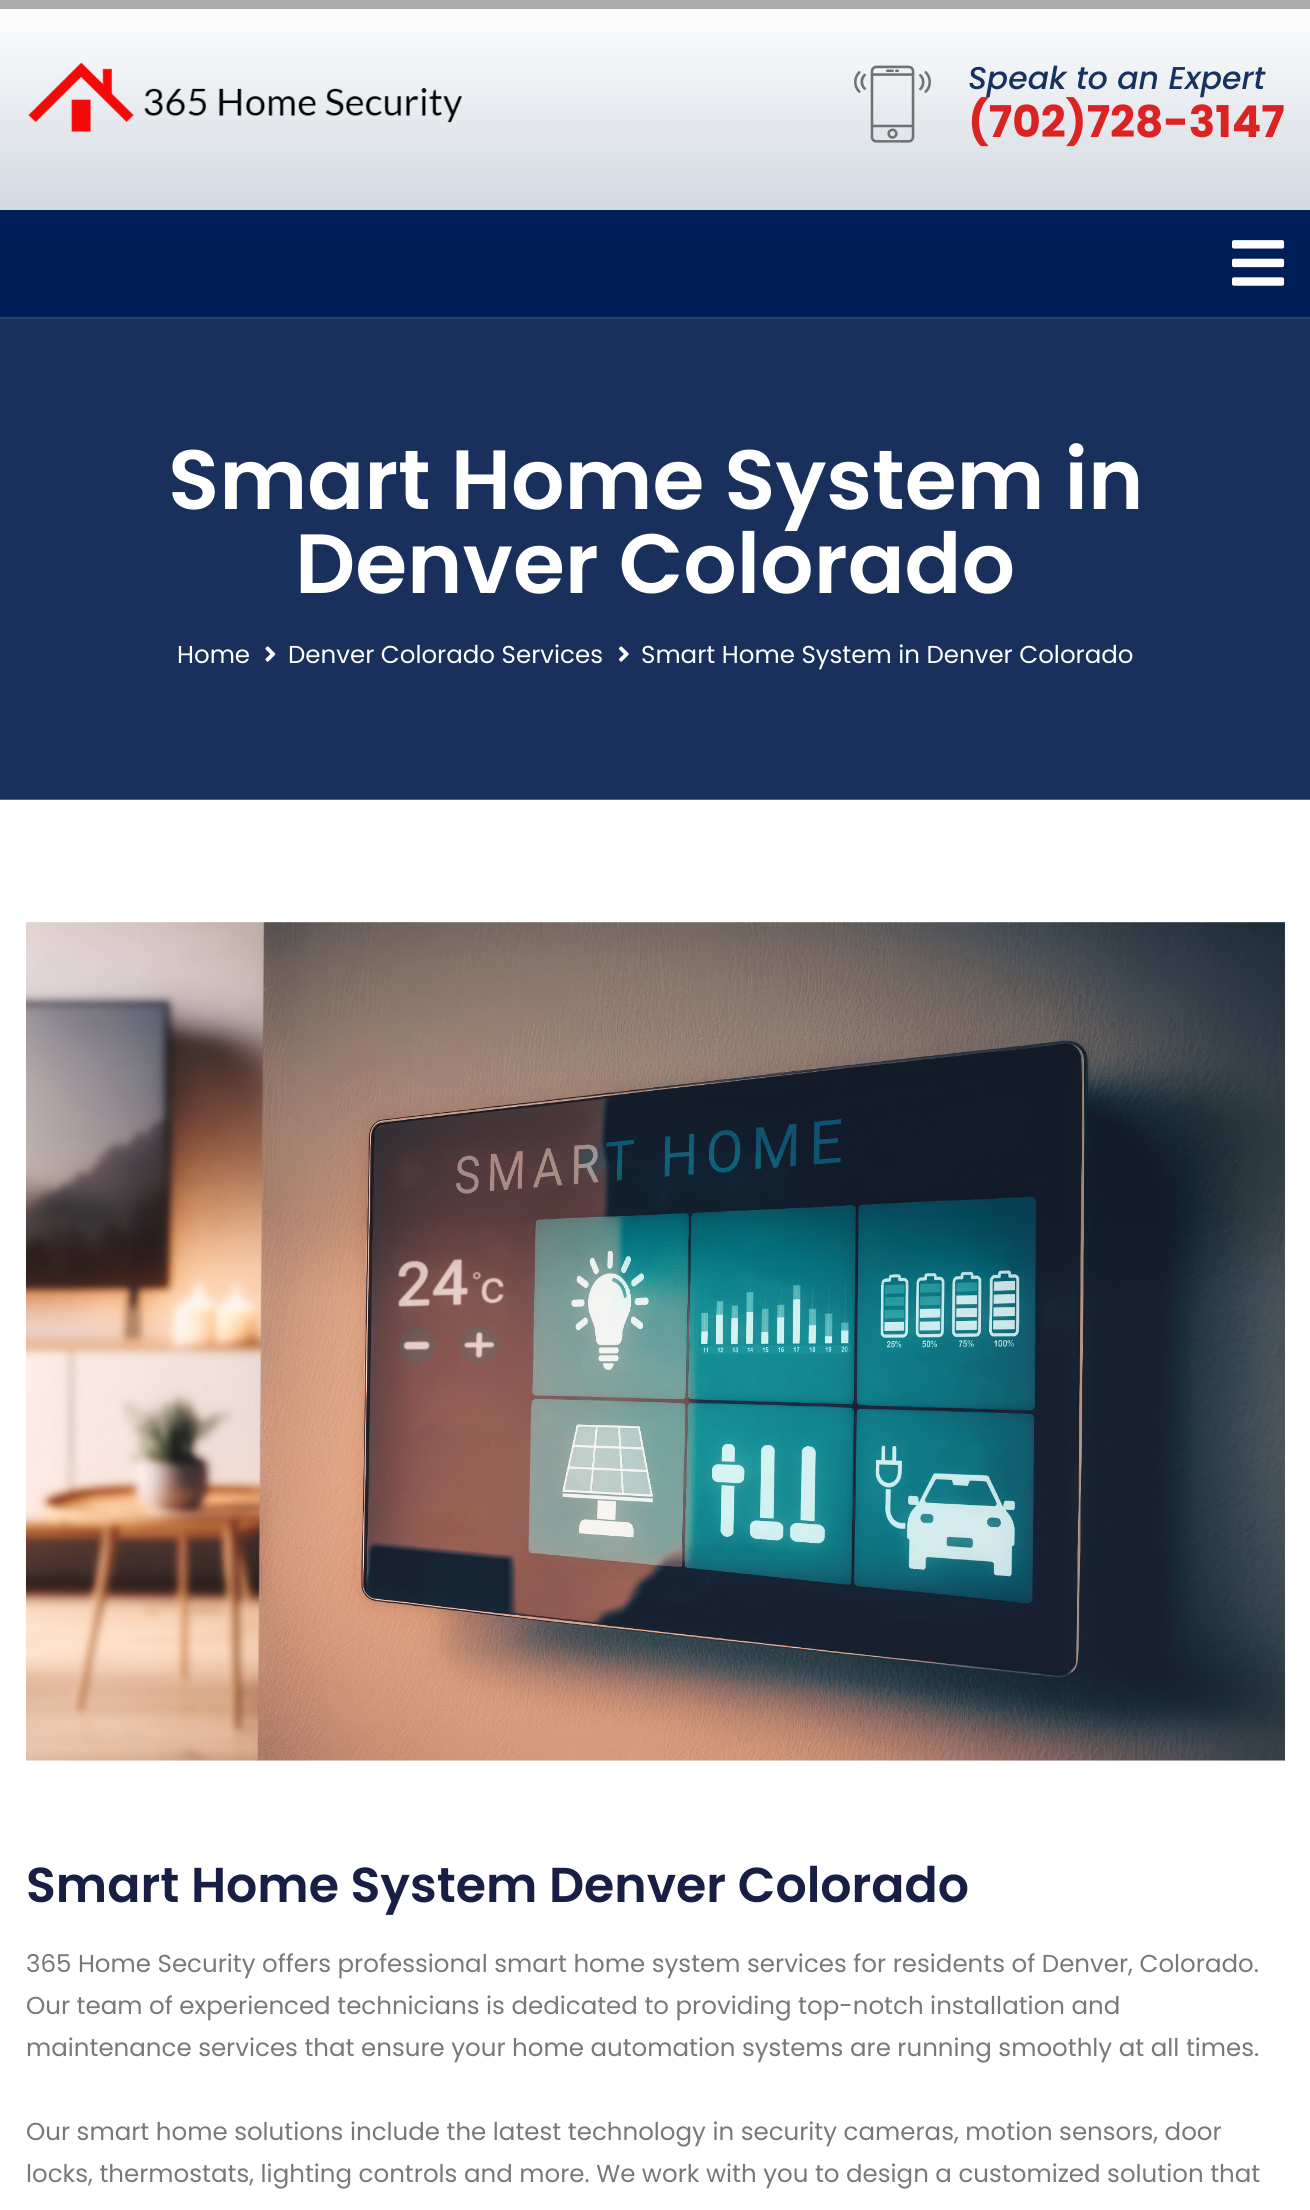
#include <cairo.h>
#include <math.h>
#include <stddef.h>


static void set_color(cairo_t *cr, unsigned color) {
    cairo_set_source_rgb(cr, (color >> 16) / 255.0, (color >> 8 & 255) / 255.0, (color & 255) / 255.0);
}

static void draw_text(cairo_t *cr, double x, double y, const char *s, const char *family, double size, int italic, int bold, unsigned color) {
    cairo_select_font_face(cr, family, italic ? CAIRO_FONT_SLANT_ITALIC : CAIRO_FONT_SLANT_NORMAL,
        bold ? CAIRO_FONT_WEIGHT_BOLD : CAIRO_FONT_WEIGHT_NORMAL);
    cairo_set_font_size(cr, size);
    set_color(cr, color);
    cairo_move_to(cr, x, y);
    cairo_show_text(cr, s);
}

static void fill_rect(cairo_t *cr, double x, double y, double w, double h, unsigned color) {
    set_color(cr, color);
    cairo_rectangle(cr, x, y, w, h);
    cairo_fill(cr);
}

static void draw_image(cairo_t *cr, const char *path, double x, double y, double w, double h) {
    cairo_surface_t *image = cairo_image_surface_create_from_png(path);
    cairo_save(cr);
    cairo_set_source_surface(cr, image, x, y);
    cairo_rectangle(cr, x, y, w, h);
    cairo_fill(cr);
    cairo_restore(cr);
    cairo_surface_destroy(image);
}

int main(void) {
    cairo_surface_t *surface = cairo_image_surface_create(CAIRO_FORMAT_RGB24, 1310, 2210);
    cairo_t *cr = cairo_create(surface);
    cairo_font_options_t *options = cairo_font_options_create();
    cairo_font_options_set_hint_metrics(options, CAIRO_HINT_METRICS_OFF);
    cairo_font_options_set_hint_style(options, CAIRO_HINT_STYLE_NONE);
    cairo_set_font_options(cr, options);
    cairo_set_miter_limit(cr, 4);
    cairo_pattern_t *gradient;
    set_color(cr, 0xFFFFFF);
    cairo_paint(cr);
    gradient = cairo_pattern_create_linear(655, 0, 655, 210);
    cairo_pattern_add_color_stop_rgba(gradient, 0, 1, 1, 1, 1);
    cairo_pattern_add_color_stop_rgba(gradient, 1, 0.824, 0.851, 0.882, 1);
    cairo_set_source(cr, gradient);
    cairo_pattern_destroy(gradient);
    cairo_rectangle(cr, 0, 12, 1310, 198);
    cairo_fill(cr);
    fill_rect(cr, 0, 0, 1310, 9, 0xABABAB);
    draw_image(cr, "assets/img1.png", 28, 63, 434, 70);
    draw_image(cr, "assets/img2.png", 854, 65, 77, 78);
    draw_text(cr, 968, 89, "Speak to an Expert", "Poppins Medium", 31.5, 1, 0, 0x173260);
    draw_text(cr, 968, 137, "(702)728-3147", "Poppins", 43.75, 0, 1, 0xDC2323);
    fill_rect(cr, 0, 210, 1310, 107, 0x001E57);
    draw_image(cr, "assets/img3.png", 1232, 240, 53, 46);
    draw_image(cr, "assets/img4.png", 0, 317, 1310, 483);
    draw_text(cr, 168, 509, "Smart Home System in", "Poppins SemiBold", 84, 0, 0, 0xFFFFFF);
    draw_text(cr, 295, 593, "Denver Colorado", "Poppins SemiBold", 84, 0, 0, 0xFFFFFF);
    draw_text(cr, 177, 663, "Home", "Poppins", 24.5, 0, 0, 0xFFFFFF);
    draw_image(cr, "assets/img5.png", 265, 646, 11, 16);
    draw_text(cr, 288, 663, "Denver Colorado Services", "Poppins", 24.5, 0, 0, 0xFFFFFF);
    draw_image(cr, "assets/img6.png", 619, 646, 10, 16);
    draw_text(cr, 641, 663, "Smart Home System in Denver Colorado", "Poppins", 24.5, 0, 0, 0xFFFFFF);
    draw_image(cr, "assets/img7.png", 26, 922, 1259, 839);
    draw_text(cr, 26, 1902, "Smart Home System Denver Colorado", "Poppins SemiBold", 49, 0, 0, 0x181E44);
    draw_text(cr, 26, 1972, "365 Home Security offers professional smart home system services for residents of Denver, Colorado.", "Poppins", 24.5, 0, 0, 0x787878);
    draw_text(cr, 26, 2014, "Our team of experienced technicians is dedicated to providing top-notch installation and", "Poppins", 24.5, 0, 0, 0x787878);
    draw_text(cr, 26, 2056, "maintenance services that ensure your home automation systems are running smoothly at all times.", "Poppins", 24.5, 0, 0, 0x787878);
    draw_text(cr, 26, 2140, "Our smart home solutions include the latest technology in security cameras, motion sensors, door", "Poppins", 24.5, 0, 0, 0x787878);
    draw_text(cr, 26, 2182, "locks, thermostats, lighting controls and more. We work with you to design a customized solution that", "Poppins", 24.5, 0, 0, 0x787878);
    cairo_surface_write_to_png(surface, "output.png");
    cairo_font_options_destroy(options);
    cairo_destroy(cr);
    cairo_surface_destroy(surface);
    return 0;
}
